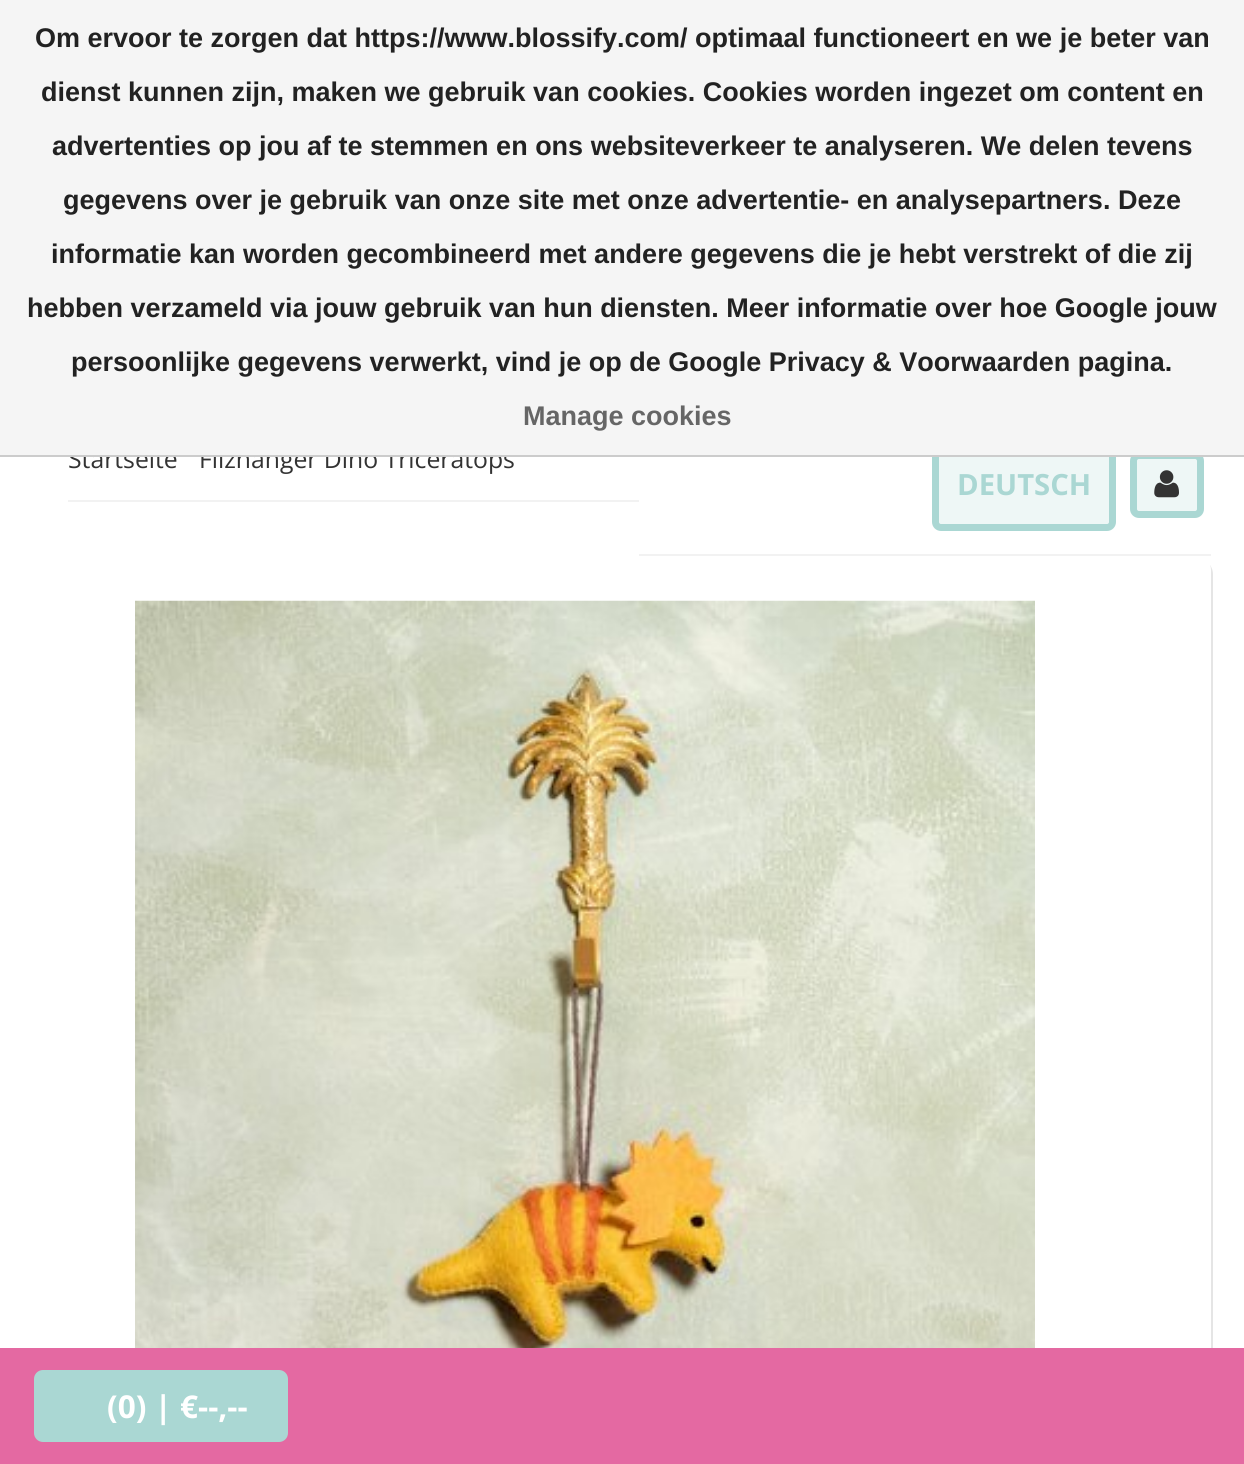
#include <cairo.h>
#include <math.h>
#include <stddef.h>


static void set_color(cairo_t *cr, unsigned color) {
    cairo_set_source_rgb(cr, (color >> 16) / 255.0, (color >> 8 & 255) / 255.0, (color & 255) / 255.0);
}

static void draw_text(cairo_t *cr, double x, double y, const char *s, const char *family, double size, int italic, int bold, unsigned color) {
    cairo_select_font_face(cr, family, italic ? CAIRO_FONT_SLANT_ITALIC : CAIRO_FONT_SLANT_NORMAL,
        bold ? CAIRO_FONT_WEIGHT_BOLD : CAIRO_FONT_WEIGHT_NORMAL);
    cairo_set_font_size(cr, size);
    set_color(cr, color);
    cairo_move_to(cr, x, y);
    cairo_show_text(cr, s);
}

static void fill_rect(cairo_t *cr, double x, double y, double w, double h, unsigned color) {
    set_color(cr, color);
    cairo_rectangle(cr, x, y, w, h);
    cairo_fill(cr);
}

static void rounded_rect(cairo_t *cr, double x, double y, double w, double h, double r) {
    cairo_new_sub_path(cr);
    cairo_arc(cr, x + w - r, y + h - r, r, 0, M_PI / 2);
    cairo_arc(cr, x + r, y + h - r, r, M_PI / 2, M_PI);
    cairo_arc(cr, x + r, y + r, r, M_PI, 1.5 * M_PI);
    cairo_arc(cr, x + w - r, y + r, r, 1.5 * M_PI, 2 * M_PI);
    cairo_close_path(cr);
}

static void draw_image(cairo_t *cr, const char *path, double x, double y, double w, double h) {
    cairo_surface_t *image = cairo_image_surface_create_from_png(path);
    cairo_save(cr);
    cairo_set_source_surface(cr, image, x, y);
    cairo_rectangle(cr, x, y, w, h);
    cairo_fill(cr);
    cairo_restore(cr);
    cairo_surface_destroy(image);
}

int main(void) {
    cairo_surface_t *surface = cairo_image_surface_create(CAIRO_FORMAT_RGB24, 1244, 1464);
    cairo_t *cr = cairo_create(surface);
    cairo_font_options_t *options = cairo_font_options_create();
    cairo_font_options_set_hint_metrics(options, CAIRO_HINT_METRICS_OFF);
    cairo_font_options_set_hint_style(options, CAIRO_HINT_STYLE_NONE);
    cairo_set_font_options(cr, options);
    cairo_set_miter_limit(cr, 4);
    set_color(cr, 0xFFFFFF);
    cairo_paint(cr);
    draw_text(cr, 68, 468, "Startseite", "Open Sans", 24.75, 0, 0, 0x333333);
    draw_text(cr, 199, 468, "Filzhänger Dino Triceratops", "Open Sans", 24.75, 0, 0, 0x333333);
    set_color(cr, 0xEEF7F6);
    rounded_rect(cr, 935.5, 442.5, 177, 85, 5.5);
    cairo_fill_preserve(cr);
    set_color(cr, 0xAAD7D3);
    cairo_set_line_width(cr, 7);
    cairo_stroke(cr);
    set_color(cr, 0xEEF7F6);
    rounded_rect(cr, 1133.5, 455.5, 67, 59, 5.5);
    cairo_fill_preserve(cr);
    set_color(cr, 0xAAD7D3);
    cairo_stroke(cr);
    fill_rect(cr, 0, 0, 1244, 455, 0xF5F5F5);
    fill_rect(cr, 0, 455, 1244, 2, 0xCCCCCC);
    draw_text(cr, 35, 47, "Om ervoor te zorgen dat https://www.blossify.com/ optimaal functioneert en we je beter van", "Liberation Sans", 27, 0, 1, 0x222222);
    draw_text(cr, 41, 101, "dienst kunnen zijn, maken we gebruik van cookies. Cookies worden ingezet om content en", "Liberation Sans", 27, 0, 1, 0x222222);
    draw_text(cr, 52, 155, "advertenties op jou af te stemmen en ons websiteverkeer te analyseren. We delen tevens", "Liberation Sans", 27, 0, 1, 0x222222);
    draw_text(cr, 63, 209, "gegevens over je gebruik van onze site met onze advertentie- en analysepartners. Deze", "Liberation Sans", 27, 0, 1, 0x222222);
    draw_text(cr, 51, 263, "informatie kan worden gecombineerd met andere gegevens die je hebt verstrekt of die zij", "Liberation Sans", 27, 0, 1, 0x222222);
    draw_text(cr, 27, 317, "hebben verzameld via jouw gebruik van hun diensten. Meer informatie over hoe Google jouw", "Liberation Sans", 27, 0, 1, 0x222222);
    draw_text(cr, 71, 371, "persoonlijke gegevens verwerkt, vind je op de Google Privacy & Voorwaarden pagina.", "Liberation Sans", 27, 0, 1, 0x222222);
    draw_text(cr, 523, 425, "Manage cookies", "Liberation Sans", 27, 0, 1, 0x666666);
    fill_rect(cr, 68, 500, 571, 2, 0xF2F2F2);
    fill_rect(cr, 639, 554, 572, 2, 0xF2F2F2);
    draw_text(cr, 957, 495, "DEUTSCH", "Open Sans", 29.25, 0, 1, 0xAAD7D3);
    draw_image(cr, "assets/img1.png", 1154, 470, 25, 28);
    set_color(cr, 0xE5E5E5);
    cairo_new_path(cr);
    cairo_move_to(cr, 71, 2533);
    cairo_curve_to(cr, 72, 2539, 78, 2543, 84, 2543);
    cairo_line_to(cr, 1199, 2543);
    cairo_curve_to(cr, 1207, 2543, 1213, 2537, 1213, 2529);
    cairo_line_to(cr, 1213, 574);
    cairo_curve_to(cr, 1213, 571, 1212, 568, 1210, 565);
    cairo_line_to(cr, 1210, 569);
    cairo_line_to(cr, 1210, 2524);
    cairo_curve_to(cr, 1210, 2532, 1204, 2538, 1197, 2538);
    cairo_line_to(cr, 81, 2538);
    cairo_curve_to(cr, 77, 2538, 73, 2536, 71, 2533);
    cairo_close_path(cr);
    cairo_fill(cr);
    set_color(cr, 0xFFFFFF);
    rounded_rect(cr, 68, 556, 1143, 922, 14);
    cairo_fill(cr);
    draw_image(cr, "assets/img2.png", 135, 600, 900, 748);
    fill_rect(cr, 0, 1348, 1244, 116, 0xE469A2);
    set_color(cr, 0xAAD7D3);
    rounded_rect(cr, 34, 1370, 254, 72, 9);
    cairo_fill(cr);
    draw_text(cr, 107, 1418, "(0) | €--,--", "Open Sans", 31.5, 0, 1, 0xFFFFFF);
    cairo_surface_write_to_png(surface, "output.png");
    cairo_font_options_destroy(options);
    cairo_destroy(cr);
    cairo_surface_destroy(surface);
    return 0;
}
